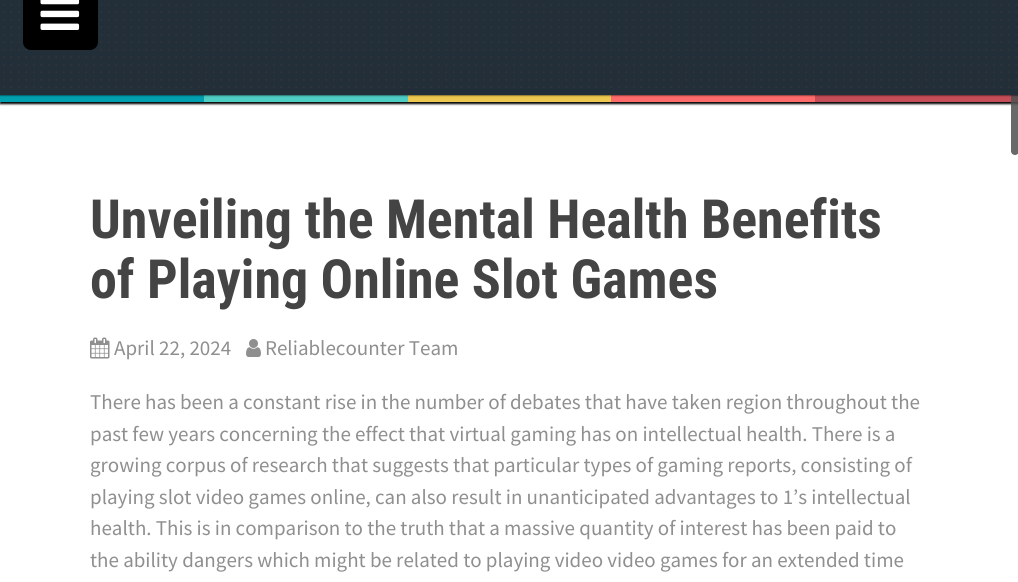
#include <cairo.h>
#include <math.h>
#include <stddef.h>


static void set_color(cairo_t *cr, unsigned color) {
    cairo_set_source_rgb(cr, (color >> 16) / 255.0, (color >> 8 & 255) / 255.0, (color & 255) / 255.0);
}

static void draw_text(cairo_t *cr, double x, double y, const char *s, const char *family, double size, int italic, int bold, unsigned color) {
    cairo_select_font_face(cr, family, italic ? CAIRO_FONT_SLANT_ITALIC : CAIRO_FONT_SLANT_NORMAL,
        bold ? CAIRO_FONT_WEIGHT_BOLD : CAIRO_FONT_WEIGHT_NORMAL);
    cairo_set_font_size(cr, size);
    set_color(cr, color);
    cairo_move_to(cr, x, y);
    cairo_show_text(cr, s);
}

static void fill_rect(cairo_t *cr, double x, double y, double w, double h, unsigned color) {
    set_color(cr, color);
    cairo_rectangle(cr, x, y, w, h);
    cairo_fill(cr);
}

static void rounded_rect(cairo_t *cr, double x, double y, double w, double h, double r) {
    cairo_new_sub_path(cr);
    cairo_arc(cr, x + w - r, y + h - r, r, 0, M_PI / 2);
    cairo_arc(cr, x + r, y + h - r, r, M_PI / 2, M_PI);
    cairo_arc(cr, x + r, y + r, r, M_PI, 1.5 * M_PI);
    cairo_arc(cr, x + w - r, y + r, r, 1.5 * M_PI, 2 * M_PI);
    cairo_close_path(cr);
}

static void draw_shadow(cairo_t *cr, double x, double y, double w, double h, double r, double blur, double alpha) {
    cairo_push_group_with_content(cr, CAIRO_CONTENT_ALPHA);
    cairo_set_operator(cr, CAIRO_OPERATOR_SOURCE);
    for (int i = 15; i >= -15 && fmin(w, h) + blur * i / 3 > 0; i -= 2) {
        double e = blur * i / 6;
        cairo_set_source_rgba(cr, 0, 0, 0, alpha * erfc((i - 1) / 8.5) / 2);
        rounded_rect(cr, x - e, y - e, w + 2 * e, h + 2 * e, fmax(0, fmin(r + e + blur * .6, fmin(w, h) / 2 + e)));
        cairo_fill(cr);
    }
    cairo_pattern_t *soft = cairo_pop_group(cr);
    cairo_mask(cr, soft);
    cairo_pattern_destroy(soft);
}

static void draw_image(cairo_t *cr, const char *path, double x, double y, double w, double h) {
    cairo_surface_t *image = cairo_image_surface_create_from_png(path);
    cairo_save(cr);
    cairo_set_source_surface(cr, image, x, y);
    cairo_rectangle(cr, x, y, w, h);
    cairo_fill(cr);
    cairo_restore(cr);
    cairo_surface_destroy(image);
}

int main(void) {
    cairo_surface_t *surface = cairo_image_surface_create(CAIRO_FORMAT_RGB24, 1018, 582);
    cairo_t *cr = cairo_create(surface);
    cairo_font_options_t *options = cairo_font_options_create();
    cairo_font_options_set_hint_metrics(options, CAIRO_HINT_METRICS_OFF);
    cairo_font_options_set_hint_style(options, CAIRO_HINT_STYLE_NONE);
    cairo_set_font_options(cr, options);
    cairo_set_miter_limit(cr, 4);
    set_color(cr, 0xFFFFFF);
    cairo_paint(cr);
    set_color(cr, 0x000000);
    draw_shadow(cr, 0, 96, 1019, 8, 0, 1, 1);
    fill_rect(cr, 815, 95, 203, 7, 0xC44D58);
    cairo_set_source_rgba(cr, 0.322, 0.322, 0.322, 0.86);
    rounded_rect(cr, 1011, 57, 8, 98, 4);
    cairo_fill(cr);
    fill_rect(cr, 0, 95, 204, 7, 0x00A0B0);
    fill_rect(cr, 204, 95, 204, 7, 0x4ECDC4);
    fill_rect(cr, 408, 95, 203, 7, 0xEDC951);
    fill_rect(cr, 611, 95, 204, 7, 0xFF6B6B);
    set_color(cr, 0x000000);
    draw_shadow(cr, 0, -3, 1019, 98, 0, 1, 1);
    fill_rect(cr, 0, 0, 1018, 95, 0x222E38);
    draw_image(cr, "assets/img1.png", 3, 4, 1014, 84);
    set_color(cr, 0x000000);
    rounded_rect(cr, 23, -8, 75, 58, 8);
    cairo_fill(cr);
    draw_image(cr, "assets/img2.png", 40, 0, 40, 30);
    draw_text(cr, 90, 238, "Unveiling the Mental Health Benefits", "Roboto Condensed", 54, 0, 1, 0x444444);
    draw_text(cr, 90, 298, "of Playing Online Slot Games", "Roboto Condensed", 54, 0, 1, 0x444444);
    draw_image(cr, "assets/img3.png", 90, 337, 20, 22);
    draw_text(cr, 114, 355, "April 22, 2024", "Source Sans Pro", 21, 0, 0, 0x8F8F8F);
    draw_image(cr, "assets/img4.png", 246, 339, 15, 18);
    draw_text(cr, 265, 355, "Reliablecounter Team", "Source Sans Pro", 21, 0, 0, 0x8F8F8F);
    draw_text(cr, 90, 409, "There has been a constant rise in the number of debates that have taken region throughout the", "Source Sans Pro", 21, 0, 0, 0x8F8F8F);
    draw_text(cr, 90, 441, "past few years concerning the effect that virtual gaming has on intellectual health. There is a", "Source Sans Pro", 21, 0, 0, 0x8F8F8F);
    draw_text(cr, 90, 472, "growing corpus of research that suggests that particular types of gaming reports, consisting of", "Source Sans Pro", 21, 0, 0, 0x8F8F8F);
    draw_text(cr, 90, 504, "playing slot video games online, can also result in unanticipated advantages to 1’s intellectual", "Source Sans Pro", 21, 0, 0, 0x8F8F8F);
    draw_text(cr, 90, 535, "health. This is in comparison to the truth that a massive quantity of interest has been paid to", "Source Sans Pro", 21, 0, 0, 0x8F8F8F);
    draw_text(cr, 90, 567, "the ability dangers which might be related to playing video video games for an extended time", "Source Sans Pro", 21, 0, 0, 0x8F8F8F);
    cairo_surface_write_to_png(surface, "output.png");
    cairo_font_options_destroy(options);
    cairo_destroy(cr);
    cairo_surface_destroy(surface);
    return 0;
}
